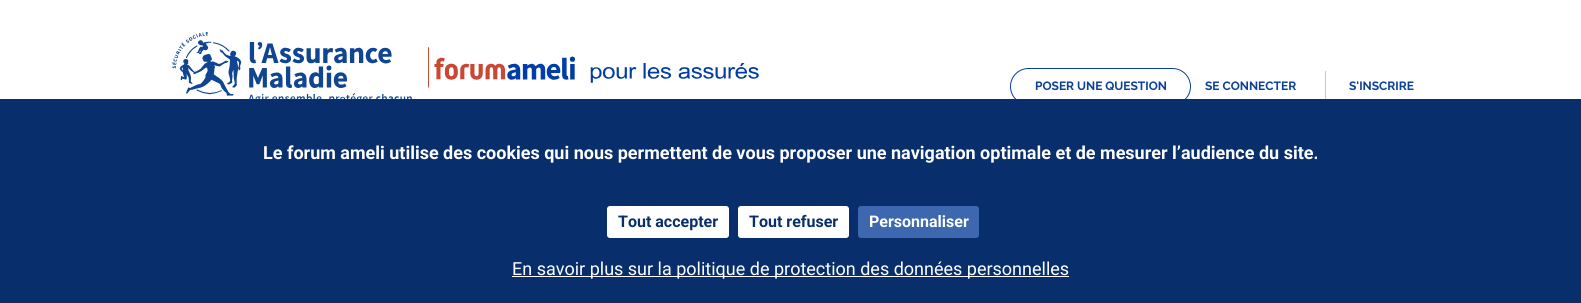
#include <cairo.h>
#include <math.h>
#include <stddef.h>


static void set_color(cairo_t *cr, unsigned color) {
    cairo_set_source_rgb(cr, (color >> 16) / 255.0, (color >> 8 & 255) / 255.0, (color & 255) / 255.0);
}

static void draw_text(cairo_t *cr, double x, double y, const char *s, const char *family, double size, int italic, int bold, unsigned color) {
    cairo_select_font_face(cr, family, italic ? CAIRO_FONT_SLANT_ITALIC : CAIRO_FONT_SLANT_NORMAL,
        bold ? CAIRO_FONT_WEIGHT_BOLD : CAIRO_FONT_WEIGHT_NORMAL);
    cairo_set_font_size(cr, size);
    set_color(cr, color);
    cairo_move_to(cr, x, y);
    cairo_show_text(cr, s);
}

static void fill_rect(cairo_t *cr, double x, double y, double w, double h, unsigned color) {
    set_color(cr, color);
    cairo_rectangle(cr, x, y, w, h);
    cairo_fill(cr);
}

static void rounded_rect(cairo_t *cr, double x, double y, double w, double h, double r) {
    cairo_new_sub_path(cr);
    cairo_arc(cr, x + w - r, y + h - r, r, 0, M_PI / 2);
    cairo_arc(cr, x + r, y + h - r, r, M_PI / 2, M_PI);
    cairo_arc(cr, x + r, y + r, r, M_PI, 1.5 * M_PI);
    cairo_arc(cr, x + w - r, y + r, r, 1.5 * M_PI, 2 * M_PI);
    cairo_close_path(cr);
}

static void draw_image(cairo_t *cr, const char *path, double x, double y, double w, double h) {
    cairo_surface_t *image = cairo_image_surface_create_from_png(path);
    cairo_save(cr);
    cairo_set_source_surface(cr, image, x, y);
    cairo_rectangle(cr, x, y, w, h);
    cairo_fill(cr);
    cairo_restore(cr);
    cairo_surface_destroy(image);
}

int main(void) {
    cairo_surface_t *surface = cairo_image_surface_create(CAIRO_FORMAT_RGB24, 1581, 303);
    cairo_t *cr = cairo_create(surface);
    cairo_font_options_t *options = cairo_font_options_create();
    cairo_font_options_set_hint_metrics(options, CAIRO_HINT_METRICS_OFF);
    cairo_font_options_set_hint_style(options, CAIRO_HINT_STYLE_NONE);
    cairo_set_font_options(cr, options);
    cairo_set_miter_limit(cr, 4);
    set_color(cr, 0xFFFFFF);
    cairo_paint(cr);
    draw_image(cr, "assets/img1.png", 171, 32, 588, 67);
    rounded_rect(cr, 1010.5, 68.5, 180, 36, 18);
    set_color(cr, 0x0C419A);
    cairo_set_line_width(cr, 1);
    cairo_stroke(cr);
    draw_text(cr, 1035, 90, "POSER UNE QUESTION", "Raleway", 12, 0, 1, 0x0C419A);
    draw_text(cr, 1205, 90, "SE CONNECTER", "Raleway", 12, 0, 1, 0x0C419A);
    fill_rect(cr, 1325, 71, 1, 30, 0xC4C8CF);
    draw_text(cr, 1349, 90, "S'INSCRIRE", "Raleway", 12, 0, 1, 0x0C419A);
    fill_rect(cr, 0, 99, 1581, 204, 0x082E6C);
    draw_text(cr, 263, 159, "Le forum ameli utilise des cookies qui nous permettent de vous proposer une navigation optimale et de mesurer l’audience du site.", "Roboto", 18, 0, 1, 0xFFFFFF);
    rounded_rect(cr, 607.5, 206.5, 121, 31, 2.5);
    cairo_fill_preserve(cr);
    cairo_stroke(cr);
    draw_text(cr, 618, 227, "Tout accepter", "Roboto", 16, 0, 1, 0x082E6C);
    set_color(cr, 0xFFFFFF);
    rounded_rect(cr, 738.5, 206.5, 110, 31, 2.5);
    cairo_fill_preserve(cr);
    cairo_stroke(cr);
    draw_text(cr, 749, 227, "Tout refuser", "Roboto", 16, 0, 1, 0x082E6C);
    set_color(cr, 0x3D67AE);
    rounded_rect(cr, 858.5, 206.5, 120, 31, 2.5);
    cairo_fill_preserve(cr);
    cairo_stroke(cr);
    draw_text(cr, 869, 227, "Personnaliser", "Roboto", 16, 0, 1, 0xFFFFFF);
    fill_rect(cr, 512, 276, 557, 1, 0xFFFFFF);
    draw_text(cr, 512, 275, "En savoir plus sur la politique de protection des données personnelles", "Roboto", 18, 0, 0, 0xFFFFFF);
    cairo_surface_write_to_png(surface, "output.png");
    cairo_font_options_destroy(options);
    cairo_destroy(cr);
    cairo_surface_destroy(surface);
    return 0;
}
